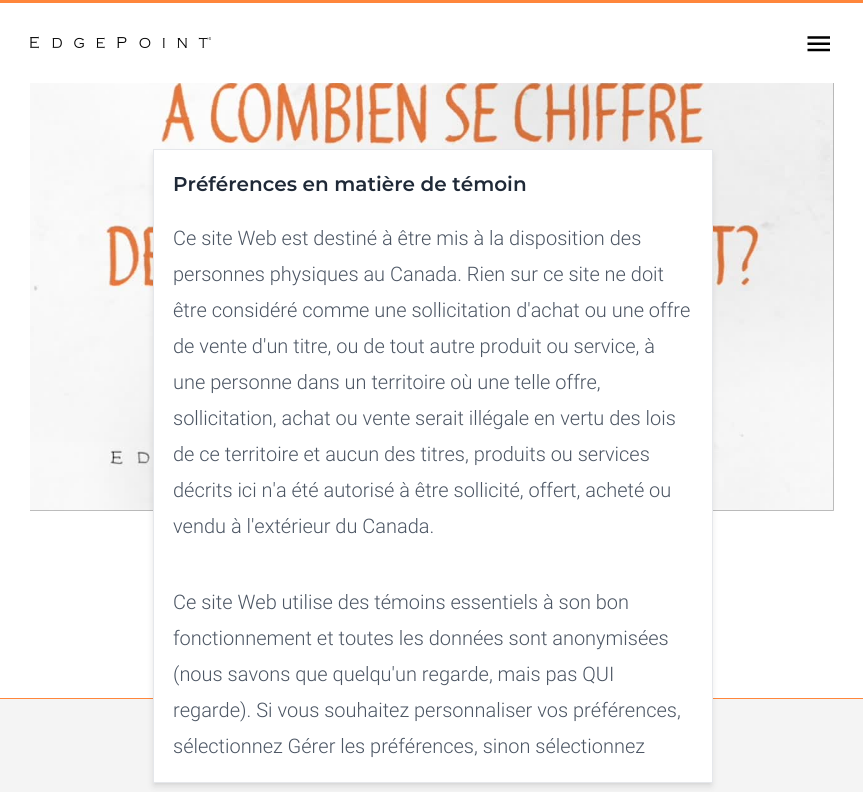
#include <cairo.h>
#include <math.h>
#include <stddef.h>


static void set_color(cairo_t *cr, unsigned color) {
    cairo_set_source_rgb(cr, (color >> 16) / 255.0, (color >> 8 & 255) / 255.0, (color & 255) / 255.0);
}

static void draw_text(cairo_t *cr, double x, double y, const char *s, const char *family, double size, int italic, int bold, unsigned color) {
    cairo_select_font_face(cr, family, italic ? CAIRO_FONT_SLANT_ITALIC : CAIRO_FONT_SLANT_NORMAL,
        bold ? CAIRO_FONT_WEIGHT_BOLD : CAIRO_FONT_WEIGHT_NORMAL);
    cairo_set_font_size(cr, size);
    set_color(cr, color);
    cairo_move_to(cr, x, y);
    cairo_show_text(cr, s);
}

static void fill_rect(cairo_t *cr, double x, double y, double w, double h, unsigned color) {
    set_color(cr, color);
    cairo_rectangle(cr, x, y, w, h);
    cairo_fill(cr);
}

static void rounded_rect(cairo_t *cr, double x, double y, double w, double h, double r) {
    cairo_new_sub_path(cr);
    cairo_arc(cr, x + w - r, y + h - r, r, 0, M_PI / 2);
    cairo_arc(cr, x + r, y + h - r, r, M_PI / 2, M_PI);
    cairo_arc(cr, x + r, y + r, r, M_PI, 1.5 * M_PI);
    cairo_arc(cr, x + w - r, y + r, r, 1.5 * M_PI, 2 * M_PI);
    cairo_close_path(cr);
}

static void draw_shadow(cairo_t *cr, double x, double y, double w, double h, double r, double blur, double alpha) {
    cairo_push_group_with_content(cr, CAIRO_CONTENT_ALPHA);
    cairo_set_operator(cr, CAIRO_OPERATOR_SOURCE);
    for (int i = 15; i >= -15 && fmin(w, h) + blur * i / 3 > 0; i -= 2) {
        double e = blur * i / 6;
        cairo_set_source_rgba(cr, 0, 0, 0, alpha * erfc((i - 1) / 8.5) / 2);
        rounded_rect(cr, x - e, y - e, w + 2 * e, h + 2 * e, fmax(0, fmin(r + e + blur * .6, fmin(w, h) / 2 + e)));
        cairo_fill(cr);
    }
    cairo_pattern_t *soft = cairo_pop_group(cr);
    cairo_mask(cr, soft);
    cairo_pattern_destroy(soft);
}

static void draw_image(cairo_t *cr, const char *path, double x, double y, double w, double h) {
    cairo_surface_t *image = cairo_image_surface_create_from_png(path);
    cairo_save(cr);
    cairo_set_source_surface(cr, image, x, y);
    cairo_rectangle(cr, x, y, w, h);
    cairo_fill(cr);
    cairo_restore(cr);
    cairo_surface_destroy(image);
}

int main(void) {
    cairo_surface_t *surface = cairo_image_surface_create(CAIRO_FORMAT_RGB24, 863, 792);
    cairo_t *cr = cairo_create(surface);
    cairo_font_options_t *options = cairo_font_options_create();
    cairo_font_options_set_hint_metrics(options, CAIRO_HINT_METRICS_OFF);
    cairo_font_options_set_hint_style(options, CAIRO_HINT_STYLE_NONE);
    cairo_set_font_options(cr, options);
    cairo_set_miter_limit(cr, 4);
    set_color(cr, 0xFFFFFF);
    cairo_paint(cr);
    fill_rect(cr, 0, 0, 863, 3, 0xFF863B);
    draw_image(cr, "assets/img1.png", 30, 36, 181, 13);
    draw_image(cr, "assets/img2.png", 807, 36, 23, 16);
    draw_image(cr, "assets/img3.png", 30, 83, 804, 428);
    fill_rect(cr, 0, 699, 863, 93, 0xF4F4F4);
    fill_rect(cr, 0, 698, 863, 1, 0xFF863B);
    set_color(cr, 0x000000);
    draw_shadow(cr, 154, 153, 557, 631, 0, 2.5, 0.06);
    draw_shadow(cr, 154, 155, 557, 631, 0, 4, 0.1);
    set_color(cr, 0xFFFFFF);
    cairo_rectangle(cr, 153.5, 149.5, 559, 633);
    cairo_fill_preserve(cr);
    set_color(cr, 0xE5E7EB);
    cairo_set_line_width(cr, 1);
    cairo_stroke(cr);
    draw_text(cr, 173, 191, "Préférences en matière de témoin", "Montserrat SemiBold", 20, 0, 0, 0x1F2937);
    draw_text(cr, 173, 245, "Ce site Web est destiné à être mis à la disposition des", "Roboto Light", 20, 0, 0, 0x4B5563);
    draw_text(cr, 173, 281, "personnes physiques au Canada. Rien sur ce site ne doit", "Roboto Light", 20, 0, 0, 0x4B5563);
    draw_text(cr, 173, 317, "être considéré comme une sollicitation d'achat ou une offre", "Roboto Light", 20, 0, 0, 0x4B5563);
    draw_text(cr, 173, 353, "de vente d'un titre, ou de tout autre produit ou service, à", "Roboto Light", 20, 0, 0, 0x4B5563);
    draw_text(cr, 173, 389, "une personne dans un territoire où une telle offre,", "Roboto Light", 20, 0, 0, 0x4B5563);
    draw_text(cr, 173, 425, "sollicitation, achat ou vente serait illégale en vertu des lois", "Roboto Light", 20, 0, 0, 0x4B5563);
    draw_text(cr, 173, 461, "de ce territoire et aucun des titres, produits ou services", "Roboto Light", 20, 0, 0, 0x4B5563);
    draw_text(cr, 173, 497, "décrits ici n'a été autorisé à être sollicité, offert, acheté ou", "Roboto Light", 20, 0, 0, 0x4B5563);
    draw_text(cr, 173, 533, "vendu à l'extérieur du Canada.", "Roboto Light", 20, 0, 0, 0x4B5563);
    draw_text(cr, 173, 609, "Ce site Web utilise des témoins essentiels à son bon", "Roboto Light", 20, 0, 0, 0x4B5563);
    draw_text(cr, 173, 645, "fonctionnement et toutes les données sont anonymisées", "Roboto Light", 20, 0, 0, 0x4B5563);
    draw_text(cr, 173, 681, "(nous savons que quelqu'un regarde, mais pas QUI", "Roboto Light", 20, 0, 0, 0x4B5563);
    draw_text(cr, 173, 717, "regarde). Si vous souhaitez personnaliser vos préférences,", "Roboto Light", 20, 0, 0, 0x4B5563);
    draw_text(cr, 173, 753, "sélectionnez Gérer les préférences, sinon sélectionnez", "Roboto Light", 20, 0, 0, 0x4B5563);
    cairo_surface_write_to_png(surface, "output.png");
    cairo_font_options_destroy(options);
    cairo_destroy(cr);
    cairo_surface_destroy(surface);
    return 0;
}
